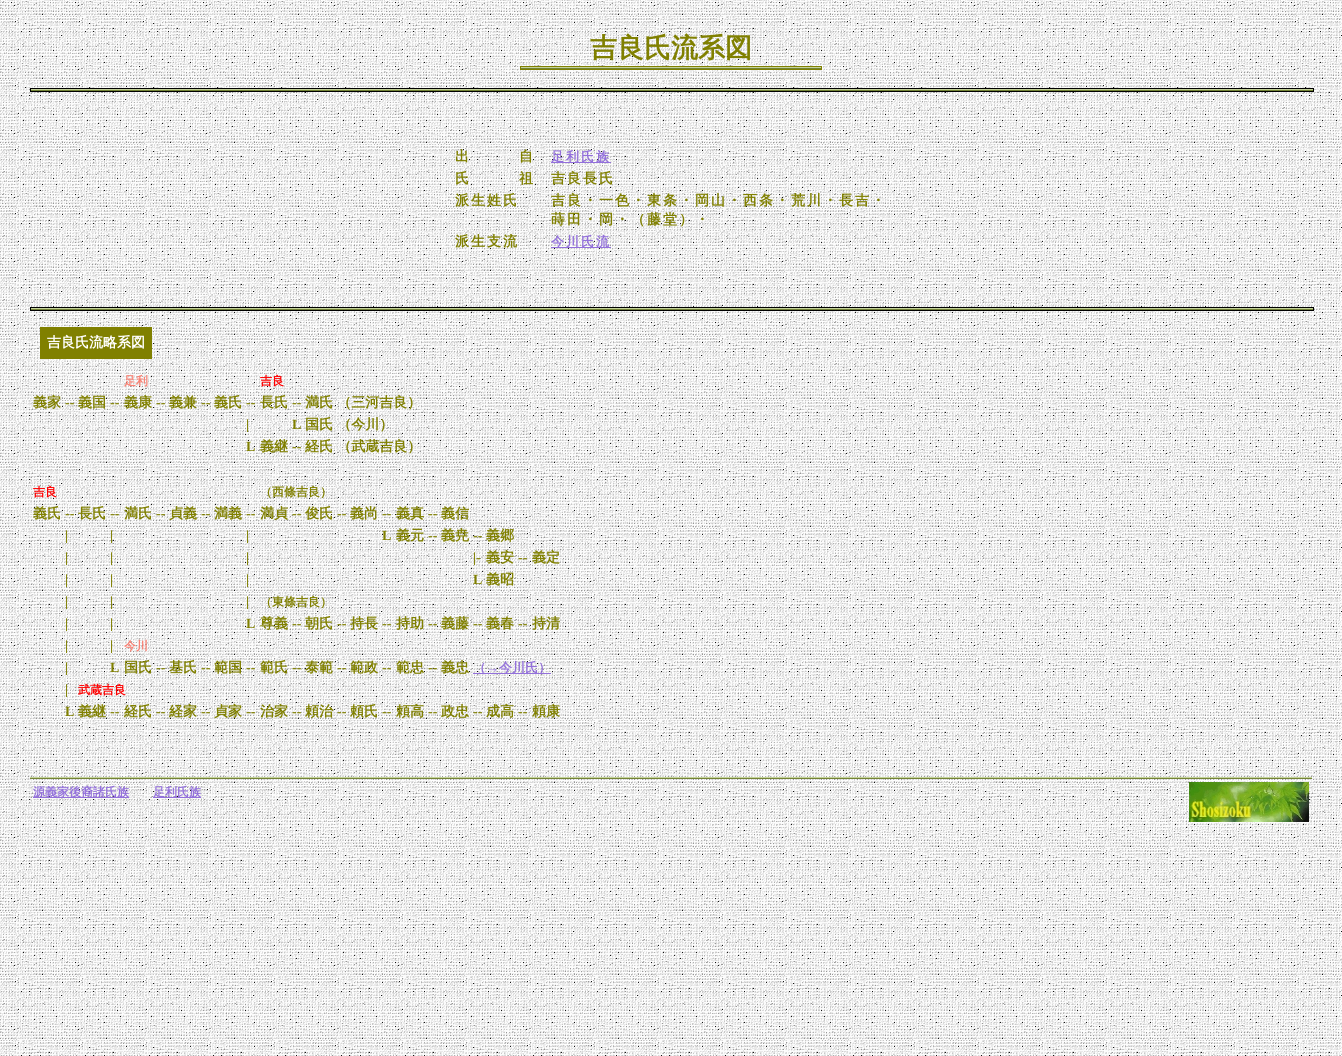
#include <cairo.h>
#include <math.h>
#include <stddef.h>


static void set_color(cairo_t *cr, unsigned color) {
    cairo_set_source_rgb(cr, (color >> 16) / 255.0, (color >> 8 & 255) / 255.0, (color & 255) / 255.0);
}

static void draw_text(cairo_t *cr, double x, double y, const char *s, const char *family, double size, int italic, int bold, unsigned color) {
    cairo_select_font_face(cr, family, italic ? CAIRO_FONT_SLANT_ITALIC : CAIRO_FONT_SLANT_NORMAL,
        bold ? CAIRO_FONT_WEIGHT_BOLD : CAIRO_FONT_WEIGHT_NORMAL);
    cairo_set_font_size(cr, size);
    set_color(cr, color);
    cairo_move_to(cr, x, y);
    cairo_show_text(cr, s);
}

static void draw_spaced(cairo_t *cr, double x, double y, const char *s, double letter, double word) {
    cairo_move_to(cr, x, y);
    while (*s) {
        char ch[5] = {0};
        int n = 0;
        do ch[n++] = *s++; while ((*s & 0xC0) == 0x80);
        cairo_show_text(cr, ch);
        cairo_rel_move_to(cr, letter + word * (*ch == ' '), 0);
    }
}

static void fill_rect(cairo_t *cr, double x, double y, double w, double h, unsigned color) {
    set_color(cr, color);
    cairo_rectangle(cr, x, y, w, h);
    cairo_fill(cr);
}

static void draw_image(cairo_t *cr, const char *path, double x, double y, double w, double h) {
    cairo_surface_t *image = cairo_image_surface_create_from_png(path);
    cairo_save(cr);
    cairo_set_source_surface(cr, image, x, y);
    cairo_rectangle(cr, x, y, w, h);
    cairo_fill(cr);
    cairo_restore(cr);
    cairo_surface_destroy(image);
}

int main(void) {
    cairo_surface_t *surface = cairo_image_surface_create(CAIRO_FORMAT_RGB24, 1342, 1056);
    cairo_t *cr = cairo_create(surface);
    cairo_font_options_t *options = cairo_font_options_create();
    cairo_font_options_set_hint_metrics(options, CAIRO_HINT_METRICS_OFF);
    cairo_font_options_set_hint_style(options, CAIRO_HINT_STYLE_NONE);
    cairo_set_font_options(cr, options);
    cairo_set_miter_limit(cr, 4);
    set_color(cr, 0xFFFFFF);
    cairo_paint(cr);
    draw_image(cr, "assets/img1.png", 0, 0, 1342, 1056);
    draw_text(cr, 590, 57, "吉良氏流系図", "WenQuanYi Zen Hei", 27, 0, 1, 0x808000);
    cairo_rectangle(cr, 520.5, 66.5, 301, 3);
    cairo_set_line_width(cr, 1);
    cairo_stroke(cr);
    draw_image(cr, "assets/img2.png", 521, 67, 300, 2);
    cairo_rectangle(cr, 30.5, 88.5, 1283, 3);
    set_color(cr, 0x000000);
    cairo_stroke(cr);
    draw_image(cr, "assets/img3.png", 31, 89, 1282, 2);
    cairo_set_font_size(cr, 14);
    set_color(cr, 0x808000);
    draw_spaced(cr, 455, 161, "出　　　自", 2, 0);
    fill_rect(cr, 551, 162, 60, 1, 0x9370DB);
    cairo_set_font_size(cr, 13);
    draw_spaced(cr, 551, 161, "足利氏族", 2, 0);
    cairo_set_font_size(cr, 14);
    set_color(cr, 0x808000);
    draw_spaced(cr, 455, 183, "氏　　　祖", 2, 0);
    draw_spaced(cr, 551, 183, "吉良長氏", 2, 0);
    draw_spaced(cr, 455, 205, "派生姓氏", 2, 0);
    draw_spaced(cr, 551, 205, "吉良・一色・東条・岡山・西条・荒川・長吉・", 2, 0);
    draw_spaced(cr, 551, 224, "蒔田・岡・（藤堂）・", 2, 0);
    draw_spaced(cr, 455, 246, "派生支流", 2, 0);
    fill_rect(cr, 551, 247, 60, 1, 0x9370DB);
    cairo_set_font_size(cr, 13);
    draw_spaced(cr, 551, 246, "今川氏流", 2, 0);
    cairo_rectangle(cr, 30.5, 307.5, 1283, 3);
    set_color(cr, 0x000000);
    cairo_stroke(cr);
    draw_image(cr, "assets/img3.png", 31, 308, 1282, 2);
    fill_rect(cr, 40, 327, 112, 32, 0x808000);
    draw_text(cr, 47, 347, "吉良氏流略系図", "WenQuanYi Zen Hei", 14, 0, 1, 0xFFFFFF);
    draw_text(cr, 124, 385, "足利", "WenQuanYi Zen Hei", 12, 0, 1, 0xFA8072);
    draw_text(cr, 260, 385, "吉良", "WenQuanYi Zen Hei", 12, 0, 1, 0xFF0000);
    draw_text(cr, 33, 407, "義家", "WenQuanYi Zen Hei", 14, 0, 1, 0x808000);
    draw_text(cr, 65, 407, "--", "Liberation Serif", 14, 0, 1, 0x808000);
    draw_text(cr, 78, 407, "義国", "WenQuanYi Zen Hei", 14, 0, 1, 0x808000);
    draw_text(cr, 110, 407, "--", "Liberation Serif", 14, 0, 1, 0x808000);
    draw_text(cr, 124, 407, "義康", "WenQuanYi Zen Hei", 14, 0, 1, 0x808000);
    draw_text(cr, 156, 407, "--", "Liberation Serif", 14, 0, 1, 0x808000);
    draw_text(cr, 169, 407, "義兼", "WenQuanYi Zen Hei", 14, 0, 1, 0x808000);
    draw_text(cr, 201, 407, "--", "Liberation Serif", 14, 0, 1, 0x808000);
    draw_text(cr, 214, 407, "義氏", "WenQuanYi Zen Hei", 14, 0, 1, 0x808000);
    draw_text(cr, 246, 407, "--", "Liberation Serif", 14, 0, 1, 0x808000);
    draw_text(cr, 260, 407, "長氏", "WenQuanYi Zen Hei", 14, 0, 1, 0x808000);
    draw_text(cr, 292, 407, "--", "Liberation Serif", 14, 0, 1, 0x808000);
    draw_text(cr, 305, 407, "満氏 （三河吉良）", "WenQuanYi Zen Hei", 14, 0, 1, 0x808000);
    draw_text(cr, 246, 429, "|", "Liberation Serif", 14, 0, 1, 0x808000);
    draw_text(cr, 292, 429, "L", "Liberation Serif", 14, 0, 1, 0x808000);
    draw_text(cr, 305, 429, "国氏 （今川）", "WenQuanYi Zen Hei", 14, 0, 1, 0x808000);
    draw_text(cr, 246, 451, "L", "Liberation Serif", 14, 0, 1, 0x808000);
    draw_text(cr, 260, 451, "義継", "WenQuanYi Zen Hei", 14, 0, 1, 0x808000);
    draw_text(cr, 292, 451, "--", "Liberation Serif", 14, 0, 1, 0x808000);
    draw_text(cr, 305, 451, "経氏 （武蔵吉良）", "WenQuanYi Zen Hei", 14, 0, 1, 0x808000);
    draw_text(cr, 33, 496, "吉良", "WenQuanYi Zen Hei", 12, 0, 1, 0xFF0000);
    draw_text(cr, 260, 496, "（西條吉良）", "WenQuanYi Zen Hei", 12, 0, 1, 0x808000);
    draw_text(cr, 33, 518, "義氏", "WenQuanYi Zen Hei", 14, 0, 1, 0x808000);
    draw_text(cr, 65, 518, "--", "Liberation Serif", 14, 0, 1, 0x808000);
    draw_text(cr, 78, 518, "長氏", "WenQuanYi Zen Hei", 14, 0, 1, 0x808000);
    draw_text(cr, 110, 518, "--", "Liberation Serif", 14, 0, 1, 0x808000);
    draw_text(cr, 124, 518, "満氏", "WenQuanYi Zen Hei", 14, 0, 1, 0x808000);
    draw_text(cr, 156, 518, "--", "Liberation Serif", 14, 0, 1, 0x808000);
    draw_text(cr, 169, 518, "貞義", "WenQuanYi Zen Hei", 14, 0, 1, 0x808000);
    draw_text(cr, 201, 518, "--", "Liberation Serif", 14, 0, 1, 0x808000);
    draw_text(cr, 214, 518, "満義", "WenQuanYi Zen Hei", 14, 0, 1, 0x808000);
    draw_text(cr, 246, 518, "--", "Liberation Serif", 14, 0, 1, 0x808000);
    draw_text(cr, 260, 518, "満貞", "WenQuanYi Zen Hei", 14, 0, 1, 0x808000);
    draw_text(cr, 292, 518, "--", "Liberation Serif", 14, 0, 1, 0x808000);
    draw_text(cr, 305, 518, "俊氏", "WenQuanYi Zen Hei", 14, 0, 1, 0x808000);
    draw_text(cr, 337, 518, "--", "Liberation Serif", 14, 0, 1, 0x808000);
    draw_text(cr, 350, 518, "義尚", "WenQuanYi Zen Hei", 14, 0, 1, 0x808000);
    draw_text(cr, 382, 518, "--", "Liberation Serif", 14, 0, 1, 0x808000);
    draw_text(cr, 396, 518, "義真", "WenQuanYi Zen Hei", 14, 0, 1, 0x808000);
    draw_text(cr, 428, 518, "--", "Liberation Serif", 14, 0, 1, 0x808000);
    draw_text(cr, 441, 518, "義信", "WenQuanYi Zen Hei", 14, 0, 1, 0x808000);
    draw_text(cr, 65, 540, "|", "Liberation Serif", 14, 0, 1, 0x808000);
    draw_text(cr, 110, 540, "|", "Liberation Serif", 14, 0, 1, 0x808000);
    draw_text(cr, 246, 540, "|", "Liberation Serif", 14, 0, 1, 0x808000);
    draw_text(cr, 382, 540, "L", "Liberation Serif", 14, 0, 1, 0x808000);
    draw_text(cr, 396, 540, "義元", "WenQuanYi Zen Hei", 14, 0, 1, 0x808000);
    draw_text(cr, 428, 540, "--", "Liberation Serif", 14, 0, 1, 0x808000);
    draw_text(cr, 441, 540, "義尭", "WenQuanYi Zen Hei", 14, 0, 1, 0x808000);
    draw_text(cr, 473, 540, "--", "Liberation Serif", 14, 0, 1, 0x808000);
    draw_text(cr, 486, 540, "義郷", "WenQuanYi Zen Hei", 14, 0, 1, 0x808000);
    draw_text(cr, 65, 562, "|", "Liberation Serif", 14, 0, 1, 0x808000);
    draw_text(cr, 110, 562, "|", "Liberation Serif", 14, 0, 1, 0x808000);
    draw_text(cr, 246, 562, "|", "Liberation Serif", 14, 0, 1, 0x808000);
    draw_text(cr, 473, 562, "|-", "Liberation Serif", 14, 0, 1, 0x808000);
    draw_text(cr, 486, 562, "義安", "WenQuanYi Zen Hei", 14, 0, 1, 0x808000);
    draw_text(cr, 518, 562, "--", "Liberation Serif", 14, 0, 1, 0x808000);
    draw_text(cr, 532, 562, "義定", "WenQuanYi Zen Hei", 14, 0, 1, 0x808000);
    draw_text(cr, 65, 584, "|", "Liberation Serif", 14, 0, 1, 0x808000);
    draw_text(cr, 110, 584, "|", "Liberation Serif", 14, 0, 1, 0x808000);
    draw_text(cr, 246, 584, "|", "Liberation Serif", 14, 0, 1, 0x808000);
    draw_text(cr, 473, 584, "L", "Liberation Serif", 14, 0, 1, 0x808000);
    draw_text(cr, 486, 584, "義昭", "WenQuanYi Zen Hei", 14, 0, 1, 0x808000);
    draw_text(cr, 65, 606, "|", "Liberation Serif", 14, 0, 1, 0x808000);
    draw_text(cr, 110, 606, "|", "Liberation Serif", 14, 0, 1, 0x808000);
    draw_text(cr, 246, 606, "|", "Liberation Serif", 14, 0, 1, 0x808000);
    draw_text(cr, 260, 606, "（東條吉良）", "WenQuanYi Zen Hei", 12, 0, 1, 0x808000);
    draw_text(cr, 65, 628, "|", "Liberation Serif", 14, 0, 1, 0x808000);
    draw_text(cr, 110, 628, "|", "Liberation Serif", 14, 0, 1, 0x808000);
    draw_text(cr, 246, 628, "L", "Liberation Serif", 14, 0, 1, 0x808000);
    draw_text(cr, 260, 628, "尊義", "WenQuanYi Zen Hei", 14, 0, 1, 0x808000);
    draw_text(cr, 292, 628, "--", "Liberation Serif", 14, 0, 1, 0x808000);
    draw_text(cr, 305, 628, "朝氏", "WenQuanYi Zen Hei", 14, 0, 1, 0x808000);
    draw_text(cr, 337, 628, "--", "Liberation Serif", 14, 0, 1, 0x808000);
    draw_text(cr, 350, 628, "持長", "WenQuanYi Zen Hei", 14, 0, 1, 0x808000);
    draw_text(cr, 382, 628, "--", "Liberation Serif", 14, 0, 1, 0x808000);
    draw_text(cr, 396, 628, "持助", "WenQuanYi Zen Hei", 14, 0, 1, 0x808000);
    draw_text(cr, 428, 628, "--", "Liberation Serif", 14, 0, 1, 0x808000);
    draw_text(cr, 441, 628, "義藤", "WenQuanYi Zen Hei", 14, 0, 1, 0x808000);
    draw_text(cr, 473, 628, "--", "Liberation Serif", 14, 0, 1, 0x808000);
    draw_text(cr, 486, 628, "義春", "WenQuanYi Zen Hei", 14, 0, 1, 0x808000);
    draw_text(cr, 518, 628, "--", "Liberation Serif", 14, 0, 1, 0x808000);
    draw_text(cr, 532, 628, "持清", "WenQuanYi Zen Hei", 14, 0, 1, 0x808000);
    draw_text(cr, 65, 650, "|", "Liberation Serif", 14, 0, 1, 0x808000);
    draw_text(cr, 110, 650, "|", "Liberation Serif", 14, 0, 1, 0x808000);
    draw_text(cr, 124, 650, "今川", "WenQuanYi Zen Hei", 12, 0, 1, 0xFA8072);
    draw_text(cr, 65, 672, "|", "Liberation Serif", 14, 0, 1, 0x808000);
    draw_text(cr, 110, 672, "L", "Liberation Serif", 14, 0, 1, 0x808000);
    draw_text(cr, 124, 672, "国氏", "WenQuanYi Zen Hei", 14, 0, 1, 0x808000);
    draw_text(cr, 156, 672, "--", "Liberation Serif", 14, 0, 1, 0x808000);
    draw_text(cr, 169, 672, "基氏", "WenQuanYi Zen Hei", 14, 0, 1, 0x808000);
    draw_text(cr, 201, 672, "--", "Liberation Serif", 14, 0, 1, 0x808000);
    draw_text(cr, 214, 672, "範国", "WenQuanYi Zen Hei", 14, 0, 1, 0x808000);
    draw_text(cr, 246, 672, "--", "Liberation Serif", 14, 0, 1, 0x808000);
    draw_text(cr, 260, 672, "範氏", "WenQuanYi Zen Hei", 14, 0, 1, 0x808000);
    draw_text(cr, 292, 672, "--", "Liberation Serif", 14, 0, 1, 0x808000);
    draw_text(cr, 305, 672, "泰範", "WenQuanYi Zen Hei", 14, 0, 1, 0x808000);
    draw_text(cr, 337, 672, "--", "Liberation Serif", 14, 0, 1, 0x808000);
    draw_text(cr, 350, 672, "範政", "WenQuanYi Zen Hei", 14, 0, 1, 0x808000);
    draw_text(cr, 382, 672, "--", "Liberation Serif", 14, 0, 1, 0x808000);
    draw_text(cr, 396, 672, "範忠", "WenQuanYi Zen Hei", 14, 0, 1, 0x808000);
    draw_text(cr, 428, 672, "--", "Liberation Serif", 14, 0, 1, 0x808000);
    draw_text(cr, 441, 672, "義忠", "WenQuanYi Zen Hei", 14, 0, 1, 0x808000);
    fill_rect(cr, 473, 673, 78, 1, 0x9370DB);
    draw_text(cr, 473, 672, "（", "WenQuanYi Zen Hei", 13, 0, 1, 0x9370DB);
    draw_text(cr, 486, 672, "→", "Liberation Serif", 13, 0, 1, 0x9370DB);
    draw_text(cr, 499, 672, "今川氏）", "WenQuanYi Zen Hei", 13, 0, 1, 0x9370DB);
    draw_text(cr, 65, 694, "|", "Liberation Serif", 14, 0, 1, 0x808000);
    draw_text(cr, 78, 694, "武蔵吉良", "WenQuanYi Zen Hei", 12, 0, 1, 0xFF0000);
    draw_text(cr, 65, 716, "L", "Liberation Serif", 14, 0, 1, 0x808000);
    draw_text(cr, 78, 716, "義継", "WenQuanYi Zen Hei", 14, 0, 1, 0x808000);
    draw_text(cr, 110, 716, "--", "Liberation Serif", 14, 0, 1, 0x808000);
    draw_text(cr, 124, 716, "経氏", "WenQuanYi Zen Hei", 14, 0, 1, 0x808000);
    draw_text(cr, 156, 716, "--", "Liberation Serif", 14, 0, 1, 0x808000);
    draw_text(cr, 169, 716, "経家", "WenQuanYi Zen Hei", 14, 0, 1, 0x808000);
    draw_text(cr, 201, 716, "--", "Liberation Serif", 14, 0, 1, 0x808000);
    draw_text(cr, 214, 716, "貞家", "WenQuanYi Zen Hei", 14, 0, 1, 0x808000);
    draw_text(cr, 246, 716, "--", "Liberation Serif", 14, 0, 1, 0x808000);
    draw_text(cr, 260, 716, "治家", "WenQuanYi Zen Hei", 14, 0, 1, 0x808000);
    draw_text(cr, 292, 716, "--", "Liberation Serif", 14, 0, 1, 0x808000);
    draw_text(cr, 305, 716, "頼治", "WenQuanYi Zen Hei", 14, 0, 1, 0x808000);
    draw_text(cr, 337, 716, "--", "Liberation Serif", 14, 0, 1, 0x808000);
    draw_text(cr, 350, 716, "頼氏", "WenQuanYi Zen Hei", 14, 0, 1, 0x808000);
    draw_text(cr, 382, 716, "--", "Liberation Serif", 14, 0, 1, 0x808000);
    draw_text(cr, 396, 716, "頼高", "WenQuanYi Zen Hei", 14, 0, 1, 0x808000);
    draw_text(cr, 428, 716, "--", "Liberation Serif", 14, 0, 1, 0x808000);
    draw_text(cr, 441, 716, "政忠", "WenQuanYi Zen Hei", 14, 0, 1, 0x808000);
    draw_text(cr, 473, 716, "--", "Liberation Serif", 14, 0, 1, 0x808000);
    draw_text(cr, 486, 716, "成高", "WenQuanYi Zen Hei", 14, 0, 1, 0x808000);
    draw_text(cr, 518, 716, "--", "Liberation Serif", 14, 0, 1, 0x808000);
    draw_text(cr, 532, 716, "頼康", "WenQuanYi Zen Hei", 14, 0, 1, 0x808000);
    draw_image(cr, "assets/img3.png", 30, 777, 1282, 2);
    fill_rect(cr, 33, 797, 96, 1, 0x9370DB);
    draw_text(cr, 33, 796, "源義家後裔諸氏族", "WenQuanYi Zen Hei", 12, 0, 1, 0x9370DB);
    fill_rect(cr, 153, 797, 48, 1, 0x9370DB);
    draw_text(cr, 153, 796, "足利氏族", "WenQuanYi Zen Hei", 12, 0, 1, 0x9370DB);
    draw_image(cr, "assets/img4.png", 1189, 782, 120, 40);
    cairo_surface_write_to_png(surface, "output.png");
    cairo_font_options_destroy(options);
    cairo_destroy(cr);
    cairo_surface_destroy(surface);
    return 0;
}
